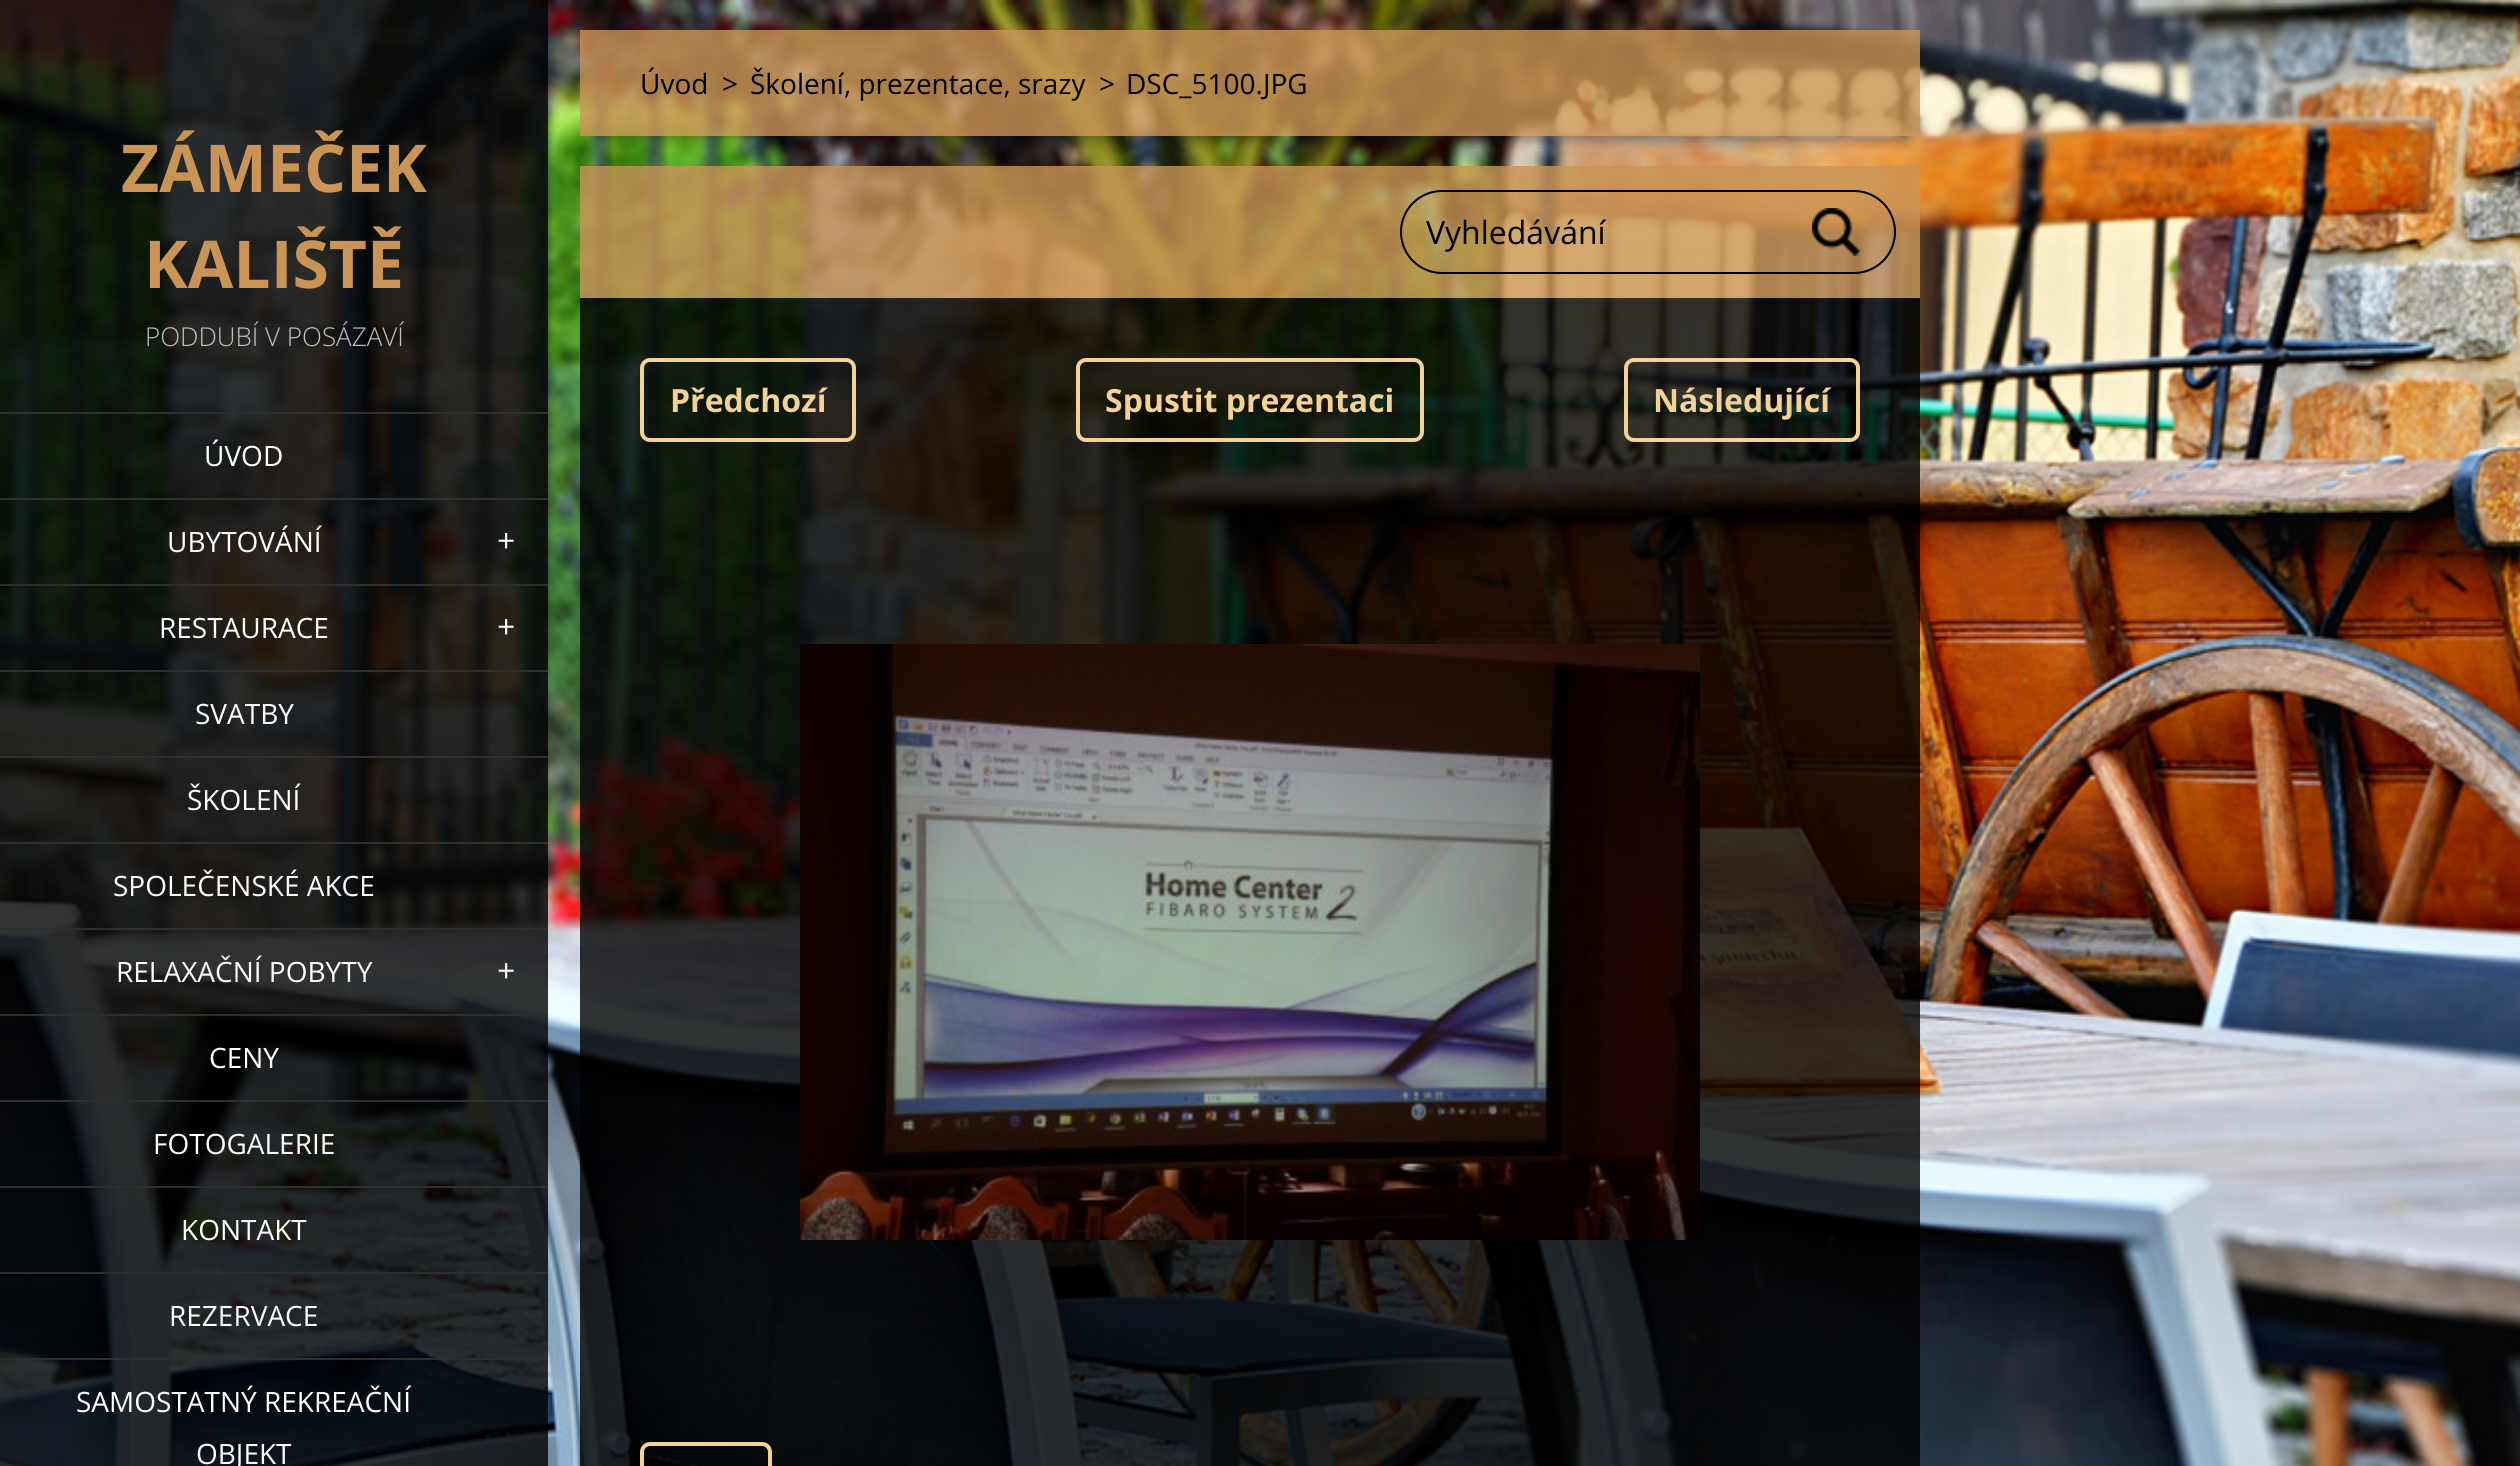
#include <cairo.h>
#include <math.h>
#include <stddef.h>


static void set_color(cairo_t *cr, unsigned color) {
    cairo_set_source_rgb(cr, (color >> 16) / 255.0, (color >> 8 & 255) / 255.0, (color & 255) / 255.0);
}

static void draw_text(cairo_t *cr, double x, double y, const char *s, const char *family, double size, int italic, int bold, unsigned color) {
    cairo_select_font_face(cr, family, italic ? CAIRO_FONT_SLANT_ITALIC : CAIRO_FONT_SLANT_NORMAL,
        bold ? CAIRO_FONT_WEIGHT_BOLD : CAIRO_FONT_WEIGHT_NORMAL);
    cairo_set_font_size(cr, size);
    set_color(cr, color);
    cairo_move_to(cr, x, y);
    cairo_show_text(cr, s);
}

static void fill_rect(cairo_t *cr, double x, double y, double w, double h, unsigned color) {
    set_color(cr, color);
    cairo_rectangle(cr, x, y, w, h);
    cairo_fill(cr);
}

static void rounded_rect(cairo_t *cr, double x, double y, double w, double h, double r) {
    cairo_new_sub_path(cr);
    cairo_arc(cr, x + w - r, y + h - r, r, 0, M_PI / 2);
    cairo_arc(cr, x + r, y + h - r, r, M_PI / 2, M_PI);
    cairo_arc(cr, x + r, y + r, r, M_PI, 1.5 * M_PI);
    cairo_arc(cr, x + w - r, y + r, r, 1.5 * M_PI, 2 * M_PI);
    cairo_close_path(cr);
}

static void draw_shadow(cairo_t *cr, double x, double y, double w, double h, double r, double blur, double alpha) {
    cairo_push_group_with_content(cr, CAIRO_CONTENT_ALPHA);
    cairo_set_operator(cr, CAIRO_OPERATOR_SOURCE);
    for (int i = 15; i >= -15 && fmin(w, h) + blur * i / 3 > 0; i -= 2) {
        double e = blur * i / 6;
        cairo_set_source_rgba(cr, 0, 0, 0, alpha * erfc((i - 1) / 8.5) / 2);
        rounded_rect(cr, x - e, y - e, w + 2 * e, h + 2 * e, fmax(0, fmin(r + e + blur * .6, fmin(w, h) / 2 + e)));
        cairo_fill(cr);
    }
    cairo_pattern_t *soft = cairo_pop_group(cr);
    cairo_mask(cr, soft);
    cairo_pattern_destroy(soft);
}

static void draw_image(cairo_t *cr, const char *path, double x, double y, double w, double h) {
    cairo_surface_t *image = cairo_image_surface_create_from_png(path);
    cairo_save(cr);
    cairo_set_source_surface(cr, image, x, y);
    cairo_rectangle(cr, x, y, w, h);
    cairo_fill(cr);
    cairo_restore(cr);
    cairo_surface_destroy(image);
}

int main(void) {
    cairo_surface_t *surface = cairo_image_surface_create(CAIRO_FORMAT_RGB24, 2520, 1466);
    cairo_t *cr = cairo_create(surface);
    cairo_font_options_t *options = cairo_font_options_create();
    cairo_font_options_set_hint_metrics(options, CAIRO_HINT_METRICS_OFF);
    cairo_font_options_set_hint_style(options, CAIRO_HINT_STYLE_NONE);
    cairo_set_font_options(cr, options);
    cairo_set_miter_limit(cr, 4);
    set_color(cr, 0xFFFFFF);
    cairo_paint(cr);
    draw_image(cr, "assets/img1.png", 0, 0, 2520, 1466);
    cairo_set_source_rgba(cr, 0, 0, 0, 0.8);
    cairo_rectangle(cr, 0, 0, 548, 312);
    cairo_fill(cr);
    draw_text(cr, 121, 192, "ZÁMEČEK", "Open Sans", 66, 0, 1, 0xC99455);
    draw_text(cr, 144, 288, "KALIŠTĚ", "Open Sans", 66, 0, 1, 0xC99455);
    cairo_set_source_rgba(cr, 0, 0, 0, 0.8);
    cairo_rectangle(cr, 0, 312, 548, 100);
    cairo_fill(cr);
    draw_text(cr, 145, 346, "PODDUBÍ V POSÁZAVÍ", "Open Sans Light", 26, 0, 0, 0xC2C2C2);
    cairo_set_source_rgba(cr, 0, 0, 0, 0.8);
    cairo_rectangle(cr, 0, 414, 548, 1052);
    cairo_fill(cr);
    fill_rect(cr, 0, 412, 548, 2, 0x2E2E2E);
    fill_rect(cr, 0, 498, 548, 2, 0x2E2E2E);
    draw_text(cr, 204, 466, "ÚVOD", "Open Sans", 28, 0, 0, 0xFFFFFF);
    fill_rect(cr, 0, 584, 548, 2, 0x2E2E2E);
    draw_text(cr, 167, 552, "UBYTOVÁNÍ", "Open Sans", 28, 0, 0, 0xFFFFFF);
    draw_text(cr, 497, 552, "+", "Open Sans", 32, 0, 0, 0xFFFFFF);
    fill_rect(cr, 0, 670, 548, 2, 0x2E2E2E);
    draw_text(cr, 159, 638, "RESTAURACE", "Open Sans", 28, 0, 0, 0xFFFFFF);
    draw_text(cr, 497, 638, "+", "Open Sans", 32, 0, 0, 0xFFFFFF);
    fill_rect(cr, 0, 756, 548, 2, 0x2E2E2E);
    draw_text(cr, 195, 724, "SVATBY", "Open Sans", 28, 0, 0, 0xFFFFFF);
    fill_rect(cr, 0, 842, 548, 2, 0x2E2E2E);
    draw_text(cr, 187, 810, "ŠKOLENÍ", "Open Sans", 28, 0, 0, 0xFFFFFF);
    fill_rect(cr, 0, 928, 548, 2, 0x2E2E2E);
    draw_text(cr, 113, 896, "SPOLEČENSKÉ AKCE", "Open Sans", 28, 0, 0, 0xFFFFFF);
    fill_rect(cr, 0, 1014, 548, 2, 0x2E2E2E);
    draw_text(cr, 116, 982, "RELAXAČNÍ POBYTY", "Open Sans", 28, 0, 0, 0xFFFFFF);
    draw_text(cr, 497, 982, "+", "Open Sans", 32, 0, 0, 0xFFFFFF);
    fill_rect(cr, 0, 1100, 548, 2, 0x2E2E2E);
    draw_text(cr, 209, 1068, "CENY", "Open Sans", 28, 0, 0, 0xFFFFFF);
    fill_rect(cr, 0, 1186, 548, 2, 0x2E2E2E);
    draw_text(cr, 153, 1154, "FOTOGALERIE", "Open Sans", 28, 0, 0, 0xFFFFFF);
    fill_rect(cr, 0, 1272, 548, 2, 0x2E2E2E);
    draw_text(cr, 181, 1240, "KONTAKT", "Open Sans", 28, 0, 0, 0xFFFFFF);
    fill_rect(cr, 0, 1358, 548, 2, 0x2E2E2E);
    draw_text(cr, 169, 1326, "REZERVACE", "Open Sans", 28, 0, 0, 0xFFFFFF);
    draw_text(cr, 76, 1412, "SAMOSTATNÝ REKREAČNÍ", "Open Sans", 28, 0, 0, 0xFFFFFF);
    draw_text(cr, 196, 1464, "OBJEKT", "Open Sans", 28, 0, 0, 0xFFFFFF);
    cairo_save(cr);
    cairo_rectangle(cr, 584, 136, 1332, 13);
    cairo_clip(cr);
    set_color(cr, 0x000000);
    draw_shadow(cr, 592, 58, 1316, 82, 0, 6, 0.35);
    cairo_restore(cr);
    cairo_set_source_rgba(cr, 0.788, 0.58, 0.333, 0.8);
    cairo_rectangle(cr, 580, 30, 1340, 106);
    cairo_fill(cr);
    draw_text(cr, 640, 94, "Úvod", "Open Sans", 28, 0, 0, 0x000000);
    draw_text(cr, 722, 94, ">", "Open Sans", 28, 0, 0, 0x000000);
    draw_text(cr, 750, 94, "Školení, prezentace, srazy", "Open Sans", 28, 0, 0, 0x000000);
    draw_text(cr, 1099, 94, ">", "Open Sans", 28, 0, 0, 0x000000);
    draw_text(cr, 1126, 94, "DSC_5100.JPG", "Open Sans", 28, 0, 0, 0x000000);
    cairo_set_source_rgba(cr, 0.788, 0.58, 0.333, 0.8);
    cairo_rectangle(cr, 580, 166, 1340, 132);
    cairo_fill(cr);
    rounded_rect(cr, 1401, 191, 494, 82, 41);
    set_color(cr, 0x000000);
    cairo_stroke(cr);
    draw_text(cr, 1426, 244, "Vyhledávání", "Open Sans", 32, 0, 0, 0x000000);
    draw_image(cr, "assets/img2.png", 1812, 208, 48, 48);
    cairo_set_source_rgba(cr, 0, 0, 0, 0.8);
    cairo_rectangle(cr, 580, 298, 1340, 1144);
    cairo_fill(cr);
    rounded_rect(cr, 642, 360, 212, 80, 8);
    set_color(cr, 0xF4D296);
    cairo_set_line_width(cr, 4);
    cairo_stroke(cr);
    draw_text(cr, 670, 412, "Předchozí", "Open Sans", 32, 0, 1, 0xF4D296);
    rounded_rect(cr, 1078, 360, 344, 80, 8);
    cairo_stroke(cr);
    draw_text(cr, 1105, 412, "Spustit prezentaci", "Open Sans", 32, 0, 1, 0xF4D296);
    rounded_rect(cr, 1626, 360, 232, 80, 8);
    cairo_stroke(cr);
    draw_text(cr, 1653, 412, "Následující", "Open Sans", 32, 0, 1, 0xF4D296);
    draw_image(cr, "assets/img3.png", 800, 644, 900, 596);
    cairo_set_source_rgba(cr, 0, 0, 0, 0.8);
    cairo_rectangle(cr, 580, 1442, 1340, 24);
    cairo_fill(cr);
    rounded_rect(cr, 642, 1444, 128, 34, 8);
    set_color(cr, 0xF4D296);
    cairo_stroke(cr);
    cairo_surface_write_to_png(surface, "output.png");
    cairo_font_options_destroy(options);
    cairo_destroy(cr);
    cairo_surface_destroy(surface);
    return 0;
}
